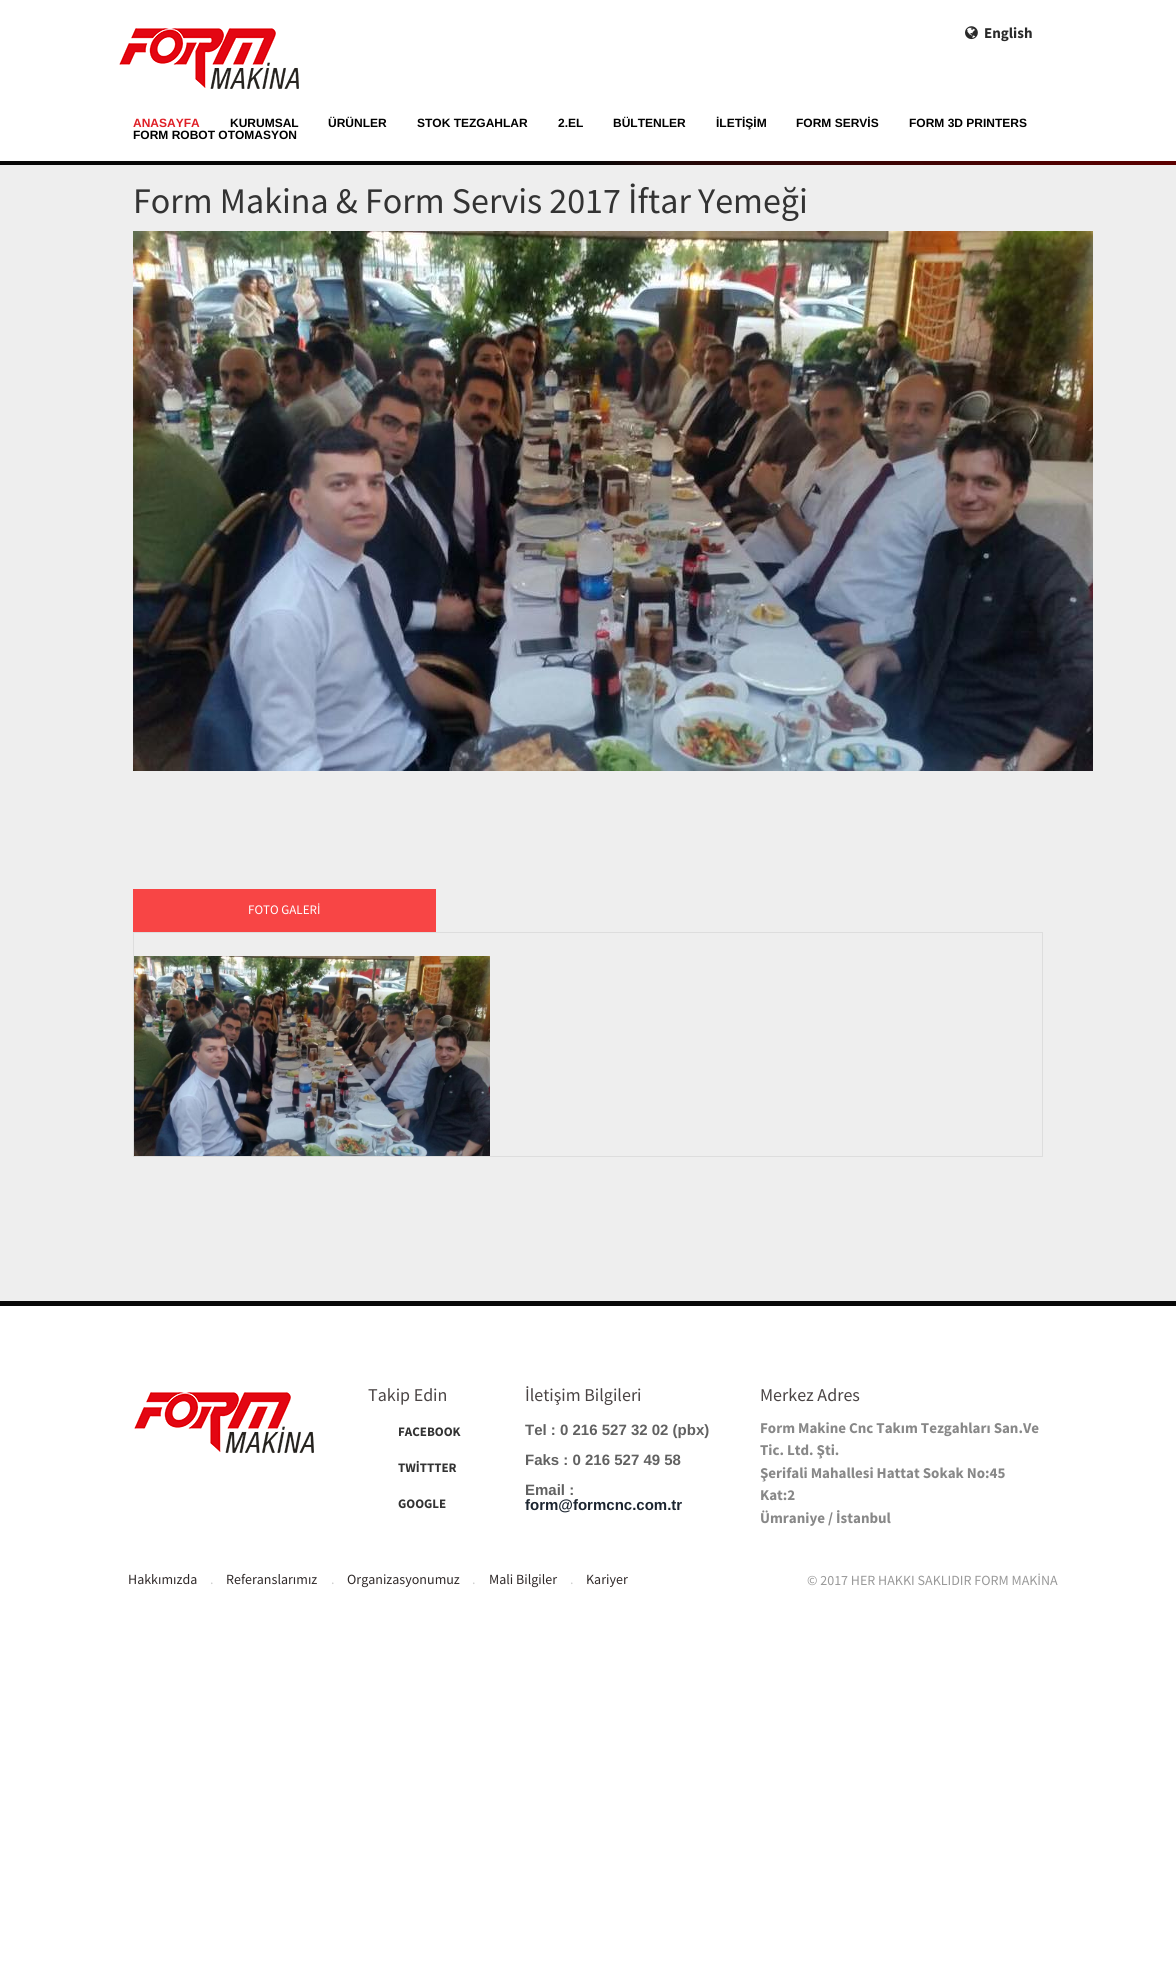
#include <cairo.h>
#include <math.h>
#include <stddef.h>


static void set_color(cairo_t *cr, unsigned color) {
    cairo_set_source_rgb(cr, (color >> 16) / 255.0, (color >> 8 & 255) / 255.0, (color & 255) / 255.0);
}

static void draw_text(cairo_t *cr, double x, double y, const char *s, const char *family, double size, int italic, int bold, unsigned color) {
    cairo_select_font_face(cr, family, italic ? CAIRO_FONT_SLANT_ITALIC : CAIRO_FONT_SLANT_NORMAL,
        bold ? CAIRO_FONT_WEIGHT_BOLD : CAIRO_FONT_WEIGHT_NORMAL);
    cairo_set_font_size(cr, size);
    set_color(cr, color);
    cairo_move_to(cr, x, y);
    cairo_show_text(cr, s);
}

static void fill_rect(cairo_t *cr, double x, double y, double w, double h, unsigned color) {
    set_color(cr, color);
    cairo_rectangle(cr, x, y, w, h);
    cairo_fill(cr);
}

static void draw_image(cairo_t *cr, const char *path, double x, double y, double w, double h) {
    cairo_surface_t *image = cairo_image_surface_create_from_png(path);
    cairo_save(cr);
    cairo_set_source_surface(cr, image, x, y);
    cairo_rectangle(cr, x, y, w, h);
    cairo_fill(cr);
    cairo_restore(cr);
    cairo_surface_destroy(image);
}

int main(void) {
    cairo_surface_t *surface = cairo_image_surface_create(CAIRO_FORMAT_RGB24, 1176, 1974);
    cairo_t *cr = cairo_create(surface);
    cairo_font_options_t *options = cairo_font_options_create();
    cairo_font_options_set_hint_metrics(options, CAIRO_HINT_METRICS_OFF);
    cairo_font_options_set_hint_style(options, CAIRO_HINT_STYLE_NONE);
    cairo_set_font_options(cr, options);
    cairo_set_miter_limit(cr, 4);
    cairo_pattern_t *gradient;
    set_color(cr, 0xFFFFFF);
    cairo_paint(cr);
    draw_image(cr, "assets/img1.png", 119, 28, 180, 61);
    draw_image(cr, "assets/img2.png", 965, 26, 13, 14);
    draw_text(cr, 984, 38, "English", "Source Sans Pro", 15, 0, 1, 0x292929);
    draw_text(cr, 133, 127, "ANASAYFA", "Liberation Sans", 12, 0, 1, 0xDF1F26);
    draw_text(cr, 230, 127, "KURUMSAL", "Liberation Sans", 12, 0, 1, 0x000000);
    draw_text(cr, 328, 127, "ÜRÜNLER", "Liberation Sans", 12, 0, 1, 0x000000);
    draw_text(cr, 417, 127, "STOK TEZGAHLAR", "Liberation Sans", 12, 0, 1, 0x000000);
    draw_text(cr, 558, 127, "2.EL", "Liberation Sans", 12, 0, 1, 0x000000);
    draw_text(cr, 613, 127, "BÜLTENLER", "Liberation Sans", 12, 0, 1, 0x000000);
    draw_text(cr, 716, 127, "İLETİŞİM", "Liberation Sans", 12, 0, 1, 0x000000);
    draw_text(cr, 796, 127, "FORM SERVİS", "Liberation Sans", 12, 0, 1, 0x000000);
    draw_text(cr, 909, 127, "FORM 3D PRINTERS", "Liberation Sans", 12, 0, 1, 0x000000);
    draw_text(cr, 133, 139, "FORM ROBOT OTOMASYON", "Liberation Sans", 12, 0, 1, 0x000000);
    gradient = cairo_pattern_create_linear(293, 458, 883, -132);
    cairo_pattern_add_color_stop_rgba(gradient, 0.5, 0.031, 0.031, 0.031, 1);
    cairo_pattern_add_color_stop_rgba(gradient, 0.57, 0.137, 0.035, 0.035, 1);
    cairo_pattern_add_color_stop_rgba(gradient, 1, 0.365, 0, 0, 1);
    cairo_set_source(cr, gradient);
    cairo_pattern_destroy(gradient);
    cairo_rectangle(cr, 0, 161, 1176, 4);
    cairo_fill(cr);
    fill_rect(cr, 0, 165, 1176, 1136, 0xEEEEEE);
    draw_text(cr, 133, 213, "Form Makina & Form Servis 2017 İftar Yemeği", "Source Sans Pro", 36, 0, 0, 0x333333);
    draw_image(cr, "assets/img3.png", 133, 231, 960, 540);
    fill_rect(cr, 133, 889, 303, 43, 0xF84545);
    draw_text(cr, 248, 914, "FOTO GALERİ", "Source Sans Pro", 13, 0, 0, 0xFFFFFF);
    cairo_rectangle(cr, 133.5, 932.5, 909, 224);
    set_color(cr, 0xDDDDDD);
    cairo_set_line_width(cr, 1);
    cairo_stroke(cr);
    draw_image(cr, "assets/img4.png", 134, 956, 356, 200);
    fill_rect(cr, 0, 1301, 1176, 5, 0x080808);
    draw_image(cr, "assets/img1.png", 134, 1392, 180, 61);
    draw_text(cr, 368, 1401, "Takip Edin", "Source Sans Pro", 18, 0, 0, 0x4A4444);
    draw_text(cr, 398, 1436, "FACEBOOK", "Source Sans Pro", 13, 0, 1, 0x333333);
    draw_text(cr, 398, 1472, "TWİTTTER", "Source Sans Pro", 13, 0, 1, 0x333333);
    draw_text(cr, 398, 1508, "GOOGLE", "Source Sans Pro", 13, 0, 1, 0x333333);
    draw_text(cr, 525, 1401, "İletişim Bilgileri", "Source Sans Pro", 18, 0, 0, 0x4A4444);
    draw_text(cr, 525, 1435, "Tel : 0 216 527 32 02 (pbx)", "Liberation Sans", 15, 0, 1, 0x616161);
    draw_text(cr, 525, 1465, "Faks : 0 216 527 49 58", "Liberation Sans", 15, 0, 1, 0x616161);
    draw_text(cr, 525, 1495, "Email :", "Liberation Sans", 15, 0, 1, 0x616161);
    draw_text(cr, 525, 1510, "form@formcnc.com.tr", "Liberation Sans", 15, 0, 1, 0x1B242F);
    draw_text(cr, 760, 1401, "Merkez Adres", "Source Sans Pro", 18, 0, 0, 0x4A4444);
    draw_text(cr, 760, 1433, "Form Makine Cnc Takım Tezgahları San.Ve", "Source Sans Pro", 15, 0, 1, 0x888888);
    draw_text(cr, 760, 1455, "Tic. Ltd. Şti.", "Source Sans Pro", 15, 0, 1, 0x888888);
    draw_text(cr, 760, 1478, "Şerifali Mahallesi Hattat Sokak No:45", "Source Sans Pro", 15, 0, 1, 0x888888);
    draw_text(cr, 760, 1500, "Kat:2", "Source Sans Pro", 15, 0, 1, 0x888888);
    draw_text(cr, 760, 1523, "Ümraniye / İstanbul", "Source Sans Pro", 15, 0, 1, 0x888888);
    draw_text(cr, 128, 1584, "Hakkımızda", "Source Sans Pro", 14, 0, 0, 0x2F2929);
    draw_text(cr, 210, 1584, ".", "Source Sans Pro", 14, 0, 0, 0xCFCFCF);
    draw_text(cr, 226, 1584, "Referanslarımız", "Source Sans Pro", 14, 0, 0, 0x2F2929);
    draw_text(cr, 331, 1584, ".", "Source Sans Pro", 14, 0, 0, 0xCFCFCF);
    draw_text(cr, 347, 1584, "Organizasyonumuz", "Source Sans Pro", 14, 0, 0, 0x2F2929);
    draw_text(cr, 472, 1584, ".", "Source Sans Pro", 14, 0, 0, 0xCFCFCF);
    draw_text(cr, 489, 1584, "Mali Bilgiler", "Source Sans Pro", 14, 0, 0, 0x2F2929);
    draw_text(cr, 570, 1584, ".", "Source Sans Pro", 14, 0, 0, 0xCFCFCF);
    draw_text(cr, 586, 1584, "Kariyer", "Source Sans Pro", 14, 0, 0, 0x2F2929);
    draw_text(cr, 807, 1585, "© 2017 HER HAKKI SAKLIDIR FORM MAKİNA", "Source Sans Pro", 14, 0, 0, 0x999999);
    cairo_surface_write_to_png(surface, "output.png");
    cairo_font_options_destroy(options);
    cairo_destroy(cr);
    cairo_surface_destroy(surface);
    return 0;
}
